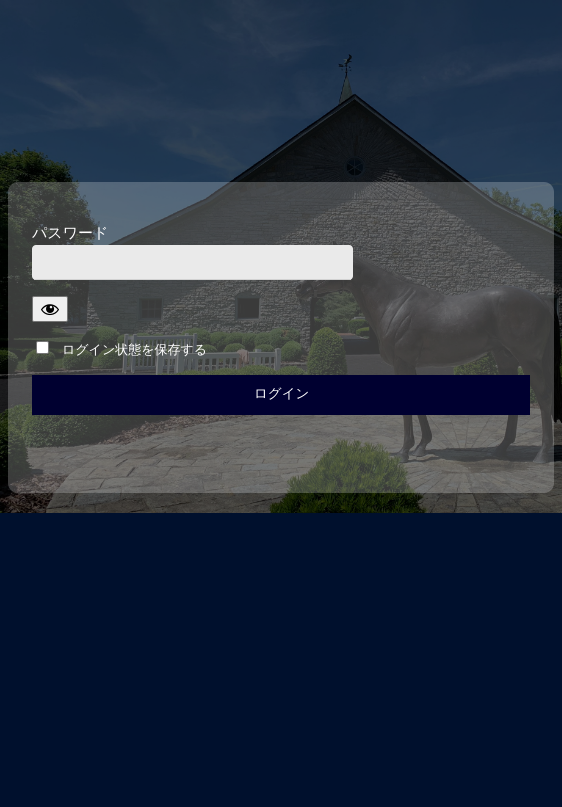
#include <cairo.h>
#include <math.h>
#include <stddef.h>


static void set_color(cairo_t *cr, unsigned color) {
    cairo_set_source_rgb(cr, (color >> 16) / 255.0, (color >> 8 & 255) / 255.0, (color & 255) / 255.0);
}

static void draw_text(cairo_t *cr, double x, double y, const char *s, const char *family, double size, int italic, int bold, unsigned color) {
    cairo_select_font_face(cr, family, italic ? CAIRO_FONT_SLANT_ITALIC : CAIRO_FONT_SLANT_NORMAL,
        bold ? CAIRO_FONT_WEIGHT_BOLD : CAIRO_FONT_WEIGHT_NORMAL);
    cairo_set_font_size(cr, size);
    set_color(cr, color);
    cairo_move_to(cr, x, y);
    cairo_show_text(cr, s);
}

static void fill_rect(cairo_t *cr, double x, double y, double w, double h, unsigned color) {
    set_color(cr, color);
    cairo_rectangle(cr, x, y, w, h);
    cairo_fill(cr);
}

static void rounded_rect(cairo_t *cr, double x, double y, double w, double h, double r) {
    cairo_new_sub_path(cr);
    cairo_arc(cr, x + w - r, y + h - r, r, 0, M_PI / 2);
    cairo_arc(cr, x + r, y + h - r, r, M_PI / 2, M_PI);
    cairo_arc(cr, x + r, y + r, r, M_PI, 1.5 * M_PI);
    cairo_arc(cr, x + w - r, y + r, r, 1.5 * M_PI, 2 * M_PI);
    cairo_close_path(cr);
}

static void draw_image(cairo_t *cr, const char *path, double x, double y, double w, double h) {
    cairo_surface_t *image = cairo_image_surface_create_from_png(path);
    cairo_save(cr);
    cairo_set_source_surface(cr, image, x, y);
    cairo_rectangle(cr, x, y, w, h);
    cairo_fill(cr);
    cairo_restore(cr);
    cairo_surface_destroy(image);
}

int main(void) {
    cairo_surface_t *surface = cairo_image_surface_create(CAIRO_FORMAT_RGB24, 562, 807);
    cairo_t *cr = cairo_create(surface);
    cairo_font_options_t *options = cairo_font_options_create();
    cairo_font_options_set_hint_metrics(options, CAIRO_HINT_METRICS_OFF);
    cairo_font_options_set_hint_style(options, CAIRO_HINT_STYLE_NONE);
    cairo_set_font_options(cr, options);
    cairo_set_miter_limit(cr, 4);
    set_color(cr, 0x00102D);
    cairo_paint(cr);
    draw_image(cr, "assets/img1.png", 0, 0, 562, 513);
    cairo_set_source_rgba(cr, 1, 1, 1, 0.23);
    rounded_rect(cr, 8, 182, 546, 311, 10);
    cairo_fill(cr);
    draw_text(cr, 32, 238, "パスワード", "WenQuanYi Zen Hei Medium", 15, 0, 0, 0xFFFFFF);
    set_color(cr, 0xEAEAEA);
    rounded_rect(cr, 32, 245, 321, 35, 4);
    cairo_fill(cr);
    fill_rect(cr, 34, 279, 317, 1, 0xD2D2D2);
    set_color(cr, 0xEFEFEF);
    rounded_rect(cr, 32.5, 296.5, 35, 25, 1.5);
    cairo_fill_preserve(cr);
    set_color(cr, 0x767676);
    cairo_set_line_width(cr, 1);
    cairo_stroke(cr);
    draw_image(cr, "assets/img2.png", 41, 304, 18, 12);
    set_color(cr, 0xFFFFFF);
    rounded_rect(cr, 36.5, 341.5, 12, 12, 1.5);
    cairo_fill_preserve(cr);
    set_color(cr, 0x767676);
    cairo_stroke(cr);
    draw_text(cr, 62, 354, "ログイン状態を保存する", "WenQuanYi Zen Hei Medium", 13, 0, 0, 0xFFFFFF);
    fill_rect(cr, 32, 375, 498, 40, 0x000030);
    draw_text(cr, 254, 398, "ログイン", "WenQuanYi Zen Hei Medium", 13.5, 0, 0, 0xFFFFFF);
    cairo_surface_write_to_png(surface, "output.png");
    cairo_font_options_destroy(options);
    cairo_destroy(cr);
    cairo_surface_destroy(surface);
    return 0;
}
